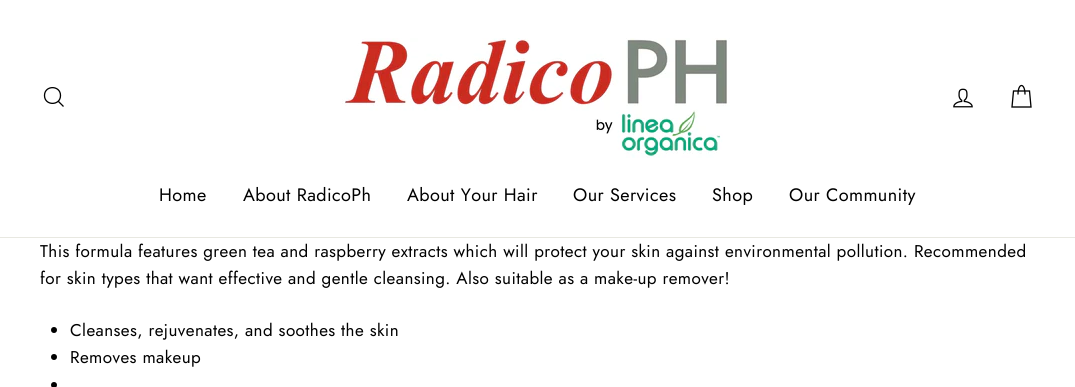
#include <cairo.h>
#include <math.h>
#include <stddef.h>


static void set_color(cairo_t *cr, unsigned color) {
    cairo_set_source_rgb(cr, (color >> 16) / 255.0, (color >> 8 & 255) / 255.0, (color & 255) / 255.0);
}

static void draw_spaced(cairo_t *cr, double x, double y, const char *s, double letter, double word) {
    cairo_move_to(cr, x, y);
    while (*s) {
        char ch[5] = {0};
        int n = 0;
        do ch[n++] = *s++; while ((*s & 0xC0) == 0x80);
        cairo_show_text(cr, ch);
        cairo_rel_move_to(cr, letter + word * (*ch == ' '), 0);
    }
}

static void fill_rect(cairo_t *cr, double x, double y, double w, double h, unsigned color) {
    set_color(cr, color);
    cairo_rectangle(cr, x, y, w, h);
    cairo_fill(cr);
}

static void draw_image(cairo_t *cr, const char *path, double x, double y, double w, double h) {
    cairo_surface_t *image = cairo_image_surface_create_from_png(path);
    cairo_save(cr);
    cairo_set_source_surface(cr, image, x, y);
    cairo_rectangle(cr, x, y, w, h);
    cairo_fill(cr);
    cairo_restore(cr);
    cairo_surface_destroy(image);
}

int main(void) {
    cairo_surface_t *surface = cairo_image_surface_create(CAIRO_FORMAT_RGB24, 1075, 387);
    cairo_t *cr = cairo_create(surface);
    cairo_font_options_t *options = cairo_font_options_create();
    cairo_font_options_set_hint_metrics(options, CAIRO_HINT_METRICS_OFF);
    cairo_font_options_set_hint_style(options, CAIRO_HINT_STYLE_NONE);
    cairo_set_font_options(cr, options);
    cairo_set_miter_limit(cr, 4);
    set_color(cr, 0xFFFFFF);
    cairo_paint(cr);
    fill_rect(cr, 0, 237, 1075, 1, 0xE8E8E1);
    cairo_new_path(cr);
    cairo_move_to(cr, 60.5, 95.5);
    cairo_curve_to(cr, 60.5, 106, 44.5, 106, 44.5, 95.5);
    cairo_curve_to(cr, 44.5, 85, 60.5, 85, 60.5, 95.5);
    cairo_close_path(cr);
    cairo_move_to(cr, 63.5, 106.5);
    cairo_line_to(cr, 58.5, 101.5);
    set_color(cr, 0x000000);
    cairo_set_line_width(cr, 1.3);
    cairo_stroke(cr);
    draw_image(cr, "assets/img1.png", 342, 38, 388, 120);
    draw_image(cr, "assets/img2.png", 953, 88, 20, 20);
    cairo_new_path(cr);
    cairo_move_to(cr, 1018, 94.5);
    cairo_curve_to(cr, 1018, 82.5, 1025, 82.5, 1025, 94.5);
    cairo_move_to(cr, 1013.5, 91);
    cairo_line_to(cr, 1029.5, 91);
    cairo_line_to(cr, 1031, 107);
    cairo_line_to(cr, 1012, 107);
    cairo_close_path(cr);
    cairo_stroke(cr);
    cairo_select_font_face(cr, "Jost", CAIRO_FONT_SLANT_NORMAL, CAIRO_FONT_WEIGHT_NORMAL);
    cairo_set_font_size(cr, 18);
    draw_spaced(cr, 159, 201, "Home", 0.42, 0);
    draw_spaced(cr, 243, 201, "About RadicoPh", 0.42, 0);
    draw_spaced(cr, 407, 201, "About Your Hair", 0.42, 0);
    draw_spaced(cr, 573, 201, "Our Services", 0.42, 0);
    draw_spaced(cr, 712, 201, "Shop", 0.42, 0);
    draw_spaced(cr, 789, 201, "Our Community", 0.42, 0);
    cairo_set_font_size(cr, 17);
    draw_spaced(cr, 40, 257, "This formula features green tea and raspberry extracts which will protect your skin against environmental pollution. Recommended", 0.42, 0);
    draw_spaced(cr, 40, 284, "for skin types that want effective and gentle cleansing. Also suitable as a make-up remover!", 0.42, 0);
    cairo_new_path(cr);
    cairo_arc(cr, 54, 330, 3, 0, 2 * M_PI);
    cairo_fill(cr);
    draw_spaced(cr, 70, 336, "Cleanses, rejuvenates, and soothes the skin", 0.42, 0);
    cairo_new_path(cr);
    cairo_arc(cr, 54, 357, 3, 0, 2 * M_PI);
    cairo_fill(cr);
    draw_spaced(cr, 70, 363, "Removes makeup", 0.42, 0);
    cairo_new_path(cr);
    cairo_arc(cr, 54, 385, 3, 0, 2 * M_PI);
    cairo_fill(cr);
    cairo_surface_write_to_png(surface, "output.png");
    cairo_font_options_destroy(options);
    cairo_destroy(cr);
    cairo_surface_destroy(surface);
    return 0;
}
